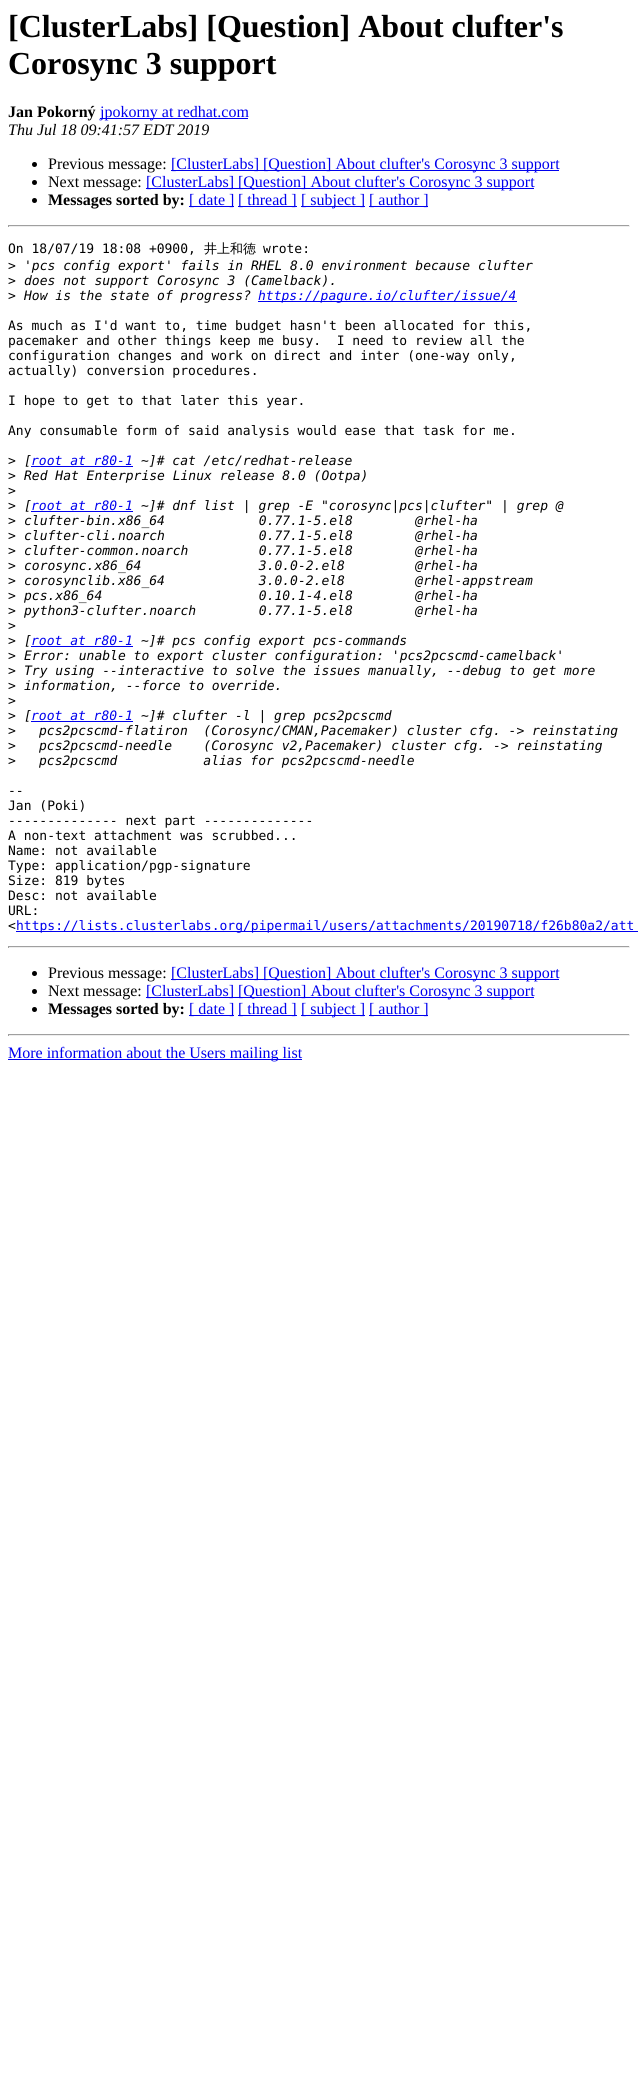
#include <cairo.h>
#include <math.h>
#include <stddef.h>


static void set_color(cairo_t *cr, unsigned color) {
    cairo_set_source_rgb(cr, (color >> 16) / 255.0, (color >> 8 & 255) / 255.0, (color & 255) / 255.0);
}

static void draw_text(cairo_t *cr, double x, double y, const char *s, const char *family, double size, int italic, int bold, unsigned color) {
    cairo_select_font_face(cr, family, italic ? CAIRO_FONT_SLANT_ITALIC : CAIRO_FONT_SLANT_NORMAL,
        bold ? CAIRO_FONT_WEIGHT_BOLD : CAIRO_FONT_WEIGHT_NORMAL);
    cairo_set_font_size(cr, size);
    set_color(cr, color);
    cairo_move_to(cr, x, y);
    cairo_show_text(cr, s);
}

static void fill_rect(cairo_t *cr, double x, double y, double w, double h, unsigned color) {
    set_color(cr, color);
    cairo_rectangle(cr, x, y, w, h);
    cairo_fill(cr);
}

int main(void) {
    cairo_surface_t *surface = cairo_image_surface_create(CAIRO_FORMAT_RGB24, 638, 2085);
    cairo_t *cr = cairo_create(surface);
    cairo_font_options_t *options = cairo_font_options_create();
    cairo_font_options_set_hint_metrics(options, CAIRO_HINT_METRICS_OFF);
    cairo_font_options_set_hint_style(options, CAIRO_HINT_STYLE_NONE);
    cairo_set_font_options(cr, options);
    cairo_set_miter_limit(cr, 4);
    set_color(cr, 0xFFFFFF);
    cairo_paint(cr);
    draw_text(cr, 8, 37, "[ClusterLabs] [Question] About clufter's", "Liberation Serif", 32, 0, 1, 0x000000);
    draw_text(cr, 8, 74, "Corosync 3 support", "Liberation Serif", 32, 0, 1, 0x000000);
    draw_text(cr, 8, 117, "Jan Pokorný", "Liberation Serif", 16, 0, 1, 0x000000);
    fill_rect(cr, 100, 118, 148, 1, 0x0000EE);
    draw_text(cr, 100, 117, "jpokorny at redhat.com", "Liberation Serif", 16, 0, 0, 0x0000EE);
    draw_text(cr, 8, 135, "Thu Jul 18 09:41:57 EDT 2019", "Liberation Serif", 16, 1, 0, 0x000000);
    cairo_new_path(cr);
    cairo_arc(cr, 34.5, 164.5, 2.5, 0, 2 * M_PI);
    cairo_fill(cr);
    draw_text(cr, 48, 169, "Previous message:", "Liberation Serif", 16, 0, 0, 0x000000);
    fill_rect(cr, 171, 170, 388, 1, 0x0000EE);
    draw_text(cr, 171, 169, "[ClusterLabs] [Question] About clufter's Corosync 3 support", "Liberation Serif", 16, 0, 0, 0x0000EE);
    set_color(cr, 0x000000);
    cairo_new_path(cr);
    cairo_arc(cr, 34.5, 182.5, 2.5, 0, 2 * M_PI);
    cairo_fill(cr);
    draw_text(cr, 48, 187, "Next message:", "Liberation Serif", 16, 0, 0, 0x000000);
    fill_rect(cr, 146, 188, 388, 1, 0x0000EE);
    draw_text(cr, 146, 187, "[ClusterLabs] [Question] About clufter's Corosync 3 support", "Liberation Serif", 16, 0, 0, 0x0000EE);
    set_color(cr, 0x000000);
    cairo_new_path(cr);
    cairo_arc(cr, 34.5, 200.5, 2.5, 0, 2 * M_PI);
    cairo_fill(cr);
    draw_text(cr, 48, 205, "Messages sorted by:", "Liberation Serif", 16, 0, 1, 0x000000);
    fill_rect(cr, 189, 206, 45, 1, 0x0000EE);
    draw_text(cr, 189, 205, "[ date ]", "Liberation Serif", 16, 0, 0, 0x0000EE);
    fill_rect(cr, 238, 206, 59, 1, 0x0000EE);
    draw_text(cr, 238, 205, "[ thread ]", "Liberation Serif", 16, 0, 0, 0x0000EE);
    fill_rect(cr, 301, 206, 64, 1, 0x0000EE);
    draw_text(cr, 301, 205, "[ subject ]", "Liberation Serif", 16, 0, 0, 0x0000EE);
    fill_rect(cr, 369, 206, 59, 1, 0x0000EE);
    draw_text(cr, 369, 205, "[ author ]", "Liberation Serif", 16, 0, 0, 0x0000EE);
    fill_rect(cr, 8, 225, 622, 1, 0x9F9F9F);
    fill_rect(cr, 629, 225, 1, 2, 0xEEEEEE);
    fill_rect(cr, 8, 226, 622, 1, 0xEEEEEE);
    fill_rect(cr, 8, 225, 1, 2, 0x9F9F9F);
    draw_text(cr, 8, 253, "On 18/07/19 18:08 +0900,", "DejaVu Sans Mono", 13, 0, 0, 0x000000);
    draw_text(cr, 204, 253, "井上和徳", "WenQuanYi Zen Hei Medium", 13, 0, 0, 0x000000);
    draw_text(cr, 263, 253, "wrote:", "DejaVu Sans Mono", 13, 0, 0, 0x000000);
    draw_text(cr, 8, 270, ">", "DejaVu Sans Mono", 13, 0, 0, 0x000000);
    draw_text(cr, 24, 270, "'pcs config export' fails in RHEL 8.0 environment because clufter", "DejaVu Sans Mono", 13, 1, 0, 0x000000);
    draw_text(cr, 8, 285, ">", "DejaVu Sans Mono", 13, 0, 0, 0x000000);
    draw_text(cr, 24, 285, "does not support Corosync 3 (Camelback).", "DejaVu Sans Mono", 13, 1, 0, 0x000000);
    draw_text(cr, 8, 300, ">", "DejaVu Sans Mono", 13, 0, 0, 0x000000);
    draw_text(cr, 24, 300, "How is the state of progress?", "DejaVu Sans Mono", 13, 1, 0, 0x000000);
    fill_rect(cr, 258, 301, 259, 1, 0x0000EE);
    draw_text(cr, 258, 300, "https://pagure.io/clufter/issue/4", "DejaVu Sans Mono", 13, 1, 0, 0x0000EE);
    draw_text(cr, 8, 330, "As much as I'd want to, time budget hasn't been allocated for this,", "DejaVu Sans Mono", 13, 0, 0, 0x000000);
    draw_text(cr, 8, 345, "pacemaker and other things keep me busy.  I need to review all the", "DejaVu Sans Mono", 13, 0, 0, 0x000000);
    draw_text(cr, 8, 360, "configuration changes and work on direct and inter (one-way only,", "DejaVu Sans Mono", 13, 0, 0, 0x000000);
    draw_text(cr, 8, 375, "actually) conversion procedures.", "DejaVu Sans Mono", 13, 0, 0, 0x000000);
    draw_text(cr, 8, 405, "I hope to get to that later this year.", "DejaVu Sans Mono", 13, 0, 0, 0x000000);
    draw_text(cr, 8, 435, "Any consumable form of said analysis would ease that task for me.", "DejaVu Sans Mono", 13, 0, 0, 0x000000);
    draw_text(cr, 8, 465, ">", "DejaVu Sans Mono", 13, 0, 0, 0x000000);
    draw_text(cr, 24, 465, "[", "DejaVu Sans Mono", 13, 1, 0, 0x000000);
    fill_rect(cr, 31, 466, 102, 1, 0x0000EE);
    draw_text(cr, 31, 465, "root at r80-1", "DejaVu Sans Mono", 13, 1, 0, 0x0000EE);
    draw_text(cr, 141, 465, "~]# cat /etc/redhat-release", "DejaVu Sans Mono", 13, 1, 0, 0x000000);
    draw_text(cr, 8, 480, ">", "DejaVu Sans Mono", 13, 0, 0, 0x000000);
    draw_text(cr, 24, 480, "Red Hat Enterprise Linux release 8.0 (Ootpa)", "DejaVu Sans Mono", 13, 1, 0, 0x000000);
    draw_text(cr, 8, 495, ">", "DejaVu Sans Mono", 13, 0, 0, 0x000000);
    draw_text(cr, 8, 510, ">", "DejaVu Sans Mono", 13, 0, 0, 0x000000);
    draw_text(cr, 24, 510, "[", "DejaVu Sans Mono", 13, 1, 0, 0x000000);
    fill_rect(cr, 31, 511, 102, 1, 0x0000EE);
    draw_text(cr, 31, 510, "root at r80-1", "DejaVu Sans Mono", 13, 1, 0, 0x0000EE);
    draw_text(cr, 141, 510, "~]# dnf list | grep -E \"corosync|pcs|clufter\" | grep @", "DejaVu Sans Mono", 13, 1, 0, 0x000000);
    draw_text(cr, 8, 525, ">", "DejaVu Sans Mono", 13, 0, 0, 0x000000);
    draw_text(cr, 24, 525, "clufter-bin.x86_64            0.77.1-5.el8        @rhel-ha", "DejaVu Sans Mono", 13, 1, 0, 0x000000);
    draw_text(cr, 8, 540, ">", "DejaVu Sans Mono", 13, 0, 0, 0x000000);
    draw_text(cr, 24, 540, "clufter-cli.noarch            0.77.1-5.el8        @rhel-ha", "DejaVu Sans Mono", 13, 1, 0, 0x000000);
    draw_text(cr, 8, 555, ">", "DejaVu Sans Mono", 13, 0, 0, 0x000000);
    draw_text(cr, 24, 555, "clufter-common.noarch         0.77.1-5.el8        @rhel-ha", "DejaVu Sans Mono", 13, 1, 0, 0x000000);
    draw_text(cr, 8, 570, ">", "DejaVu Sans Mono", 13, 0, 0, 0x000000);
    draw_text(cr, 24, 570, "corosync.x86_64               3.0.0-2.el8         @rhel-ha", "DejaVu Sans Mono", 13, 1, 0, 0x000000);
    draw_text(cr, 8, 585, ">", "DejaVu Sans Mono", 13, 0, 0, 0x000000);
    draw_text(cr, 24, 585, "corosynclib.x86_64            3.0.0-2.el8         @rhel-appstream", "DejaVu Sans Mono", 13, 1, 0, 0x000000);
    draw_text(cr, 8, 600, ">", "DejaVu Sans Mono", 13, 0, 0, 0x000000);
    draw_text(cr, 24, 600, "pcs.x86_64                    0.10.1-4.el8        @rhel-ha", "DejaVu Sans Mono", 13, 1, 0, 0x000000);
    draw_text(cr, 8, 615, ">", "DejaVu Sans Mono", 13, 0, 0, 0x000000);
    draw_text(cr, 24, 615, "python3-clufter.noarch        0.77.1-5.el8        @rhel-ha", "DejaVu Sans Mono", 13, 1, 0, 0x000000);
    draw_text(cr, 8, 630, ">", "DejaVu Sans Mono", 13, 0, 0, 0x000000);
    draw_text(cr, 8, 645, ">", "DejaVu Sans Mono", 13, 0, 0, 0x000000);
    draw_text(cr, 24, 645, "[", "DejaVu Sans Mono", 13, 1, 0, 0x000000);
    fill_rect(cr, 31, 646, 102, 1, 0x0000EE);
    draw_text(cr, 31, 645, "root at r80-1", "DejaVu Sans Mono", 13, 1, 0, 0x0000EE);
    draw_text(cr, 141, 645, "~]# pcs config export pcs-commands", "DejaVu Sans Mono", 13, 1, 0, 0x000000);
    draw_text(cr, 8, 660, ">", "DejaVu Sans Mono", 13, 0, 0, 0x000000);
    draw_text(cr, 24, 660, "Error: unable to export cluster configuration: 'pcs2pcscmd-camelback'", "DejaVu Sans Mono", 13, 1, 0, 0x000000);
    draw_text(cr, 8, 675, ">", "DejaVu Sans Mono", 13, 0, 0, 0x000000);
    draw_text(cr, 24, 675, "Try using --interactive to solve the issues manually, --debug to get more", "DejaVu Sans Mono", 13, 1, 0, 0x000000);
    draw_text(cr, 8, 690, ">", "DejaVu Sans Mono", 13, 0, 0, 0x000000);
    draw_text(cr, 24, 690, "information, --force to override.", "DejaVu Sans Mono", 13, 1, 0, 0x000000);
    draw_text(cr, 8, 705, ">", "DejaVu Sans Mono", 13, 0, 0, 0x000000);
    draw_text(cr, 8, 720, ">", "DejaVu Sans Mono", 13, 0, 0, 0x000000);
    draw_text(cr, 24, 720, "[", "DejaVu Sans Mono", 13, 1, 0, 0x000000);
    fill_rect(cr, 31, 721, 102, 1, 0x0000EE);
    draw_text(cr, 31, 720, "root at r80-1", "DejaVu Sans Mono", 13, 1, 0, 0x0000EE);
    draw_text(cr, 141, 720, "~]# clufter -l | grep pcs2pcscmd", "DejaVu Sans Mono", 13, 1, 0, 0x000000);
    draw_text(cr, 8, 735, ">", "DejaVu Sans Mono", 13, 0, 0, 0x000000);
    draw_text(cr, 39, 735, "pcs2pcscmd-flatiron  (Corosync/CMAN,Pacemaker) cluster cfg. -> reinstating", "DejaVu Sans Mono", 13, 1, 0, 0x000000);
    draw_text(cr, 8, 750, ">", "DejaVu Sans Mono", 13, 0, 0, 0x000000);
    draw_text(cr, 39, 750, "pcs2pcscmd-needle    (Corosync v2,Pacemaker) cluster cfg. -> reinstating", "DejaVu Sans Mono", 13, 1, 0, 0x000000);
    draw_text(cr, 8, 765, ">", "DejaVu Sans Mono", 13, 0, 0, 0x000000);
    draw_text(cr, 39, 765, "pcs2pcscmd           alias for pcs2pcscmd-needle", "DejaVu Sans Mono", 13, 1, 0, 0x000000);
    draw_text(cr, 8, 795, "--", "DejaVu Sans Mono", 13, 0, 0, 0x000000);
    draw_text(cr, 8, 810, "Jan (Poki)", "DejaVu Sans Mono", 13, 0, 0, 0x000000);
    draw_text(cr, 8, 825, "-------------- next part --------------", "DejaVu Sans Mono", 13, 0, 0, 0x000000);
    draw_text(cr, 8, 840, "A non-text attachment was scrubbed...", "DejaVu Sans Mono", 13, 0, 0, 0x000000);
    draw_text(cr, 8, 855, "Name: not available", "DejaVu Sans Mono", 13, 0, 0, 0x000000);
    draw_text(cr, 8, 870, "Type: application/pgp-signature", "DejaVu Sans Mono", 13, 0, 0, 0x000000);
    draw_text(cr, 8, 885, "Size: 819 bytes", "DejaVu Sans Mono", 13, 0, 0, 0x000000);
    draw_text(cr, 8, 900, "Desc: not available", "DejaVu Sans Mono", 13, 0, 0, 0x000000);
    draw_text(cr, 8, 915, "URL:", "DejaVu Sans Mono", 13, 0, 0, 0x000000);
    draw_text(cr, 8, 930, "<", "DejaVu Sans Mono", 13, 0, 0, 0x000000);
    fill_rect(cr, 16, 931, 622, 1, 0x0000EE);
    draw_text(cr, 16, 930, "https://lists.clusterlabs.org/pipermail/users/attachments/20190718/f26b80a2/att", "DejaVu Sans Mono", 13, 0, 0, 0x0000EE);
    fill_rect(cr, 8, 946, 622, 1, 0x9F9F9F);
    fill_rect(cr, 629, 946, 1, 2, 0xEEEEEE);
    fill_rect(cr, 8, 947, 622, 1, 0xEEEEEE);
    fill_rect(cr, 8, 946, 1, 2, 0x9F9F9F);
    set_color(cr, 0x000000);
    cairo_new_path(cr);
    cairo_arc(cr, 34.5, 973.5, 2.5, 0, 2 * M_PI);
    cairo_fill(cr);
    draw_text(cr, 48, 978, "Previous message:", "Liberation Serif", 16, 0, 0, 0x000000);
    fill_rect(cr, 171, 979, 388, 1, 0x0000EE);
    draw_text(cr, 171, 978, "[ClusterLabs] [Question] About clufter's Corosync 3 support", "Liberation Serif", 16, 0, 0, 0x0000EE);
    set_color(cr, 0x000000);
    cairo_new_path(cr);
    cairo_arc(cr, 34.5, 991.5, 2.5, 0, 2 * M_PI);
    cairo_fill(cr);
    draw_text(cr, 48, 996, "Next message:", "Liberation Serif", 16, 0, 0, 0x000000);
    fill_rect(cr, 146, 997, 388, 1, 0x0000EE);
    draw_text(cr, 146, 996, "[ClusterLabs] [Question] About clufter's Corosync 3 support", "Liberation Serif", 16, 0, 0, 0x0000EE);
    set_color(cr, 0x000000);
    cairo_new_path(cr);
    cairo_arc(cr, 34.5, 1009.5, 2.5, 0, 2 * M_PI);
    cairo_fill(cr);
    draw_text(cr, 48, 1014, "Messages sorted by:", "Liberation Serif", 16, 0, 1, 0x000000);
    fill_rect(cr, 189, 1015, 45, 1, 0x0000EE);
    draw_text(cr, 189, 1014, "[ date ]", "Liberation Serif", 16, 0, 0, 0x0000EE);
    fill_rect(cr, 238, 1015, 59, 1, 0x0000EE);
    draw_text(cr, 238, 1014, "[ thread ]", "Liberation Serif", 16, 0, 0, 0x0000EE);
    fill_rect(cr, 301, 1015, 64, 1, 0x0000EE);
    draw_text(cr, 301, 1014, "[ subject ]", "Liberation Serif", 16, 0, 0, 0x0000EE);
    fill_rect(cr, 369, 1015, 59, 1, 0x0000EE);
    draw_text(cr, 369, 1014, "[ author ]", "Liberation Serif", 16, 0, 0, 0x0000EE);
    fill_rect(cr, 8, 1034, 622, 1, 0x9F9F9F);
    fill_rect(cr, 629, 1034, 1, 2, 0xEEEEEE);
    fill_rect(cr, 8, 1035, 622, 1, 0xEEEEEE);
    fill_rect(cr, 8, 1034, 1, 2, 0x9F9F9F);
    fill_rect(cr, 8, 1059, 294, 1, 0x0000EE);
    draw_text(cr, 8, 1058, "More information about the Users mailing list", "Liberation Serif", 16, 0, 0, 0x0000EE);
    cairo_surface_write_to_png(surface, "output.png");
    cairo_font_options_destroy(options);
    cairo_destroy(cr);
    cairo_surface_destroy(surface);
    return 0;
}
